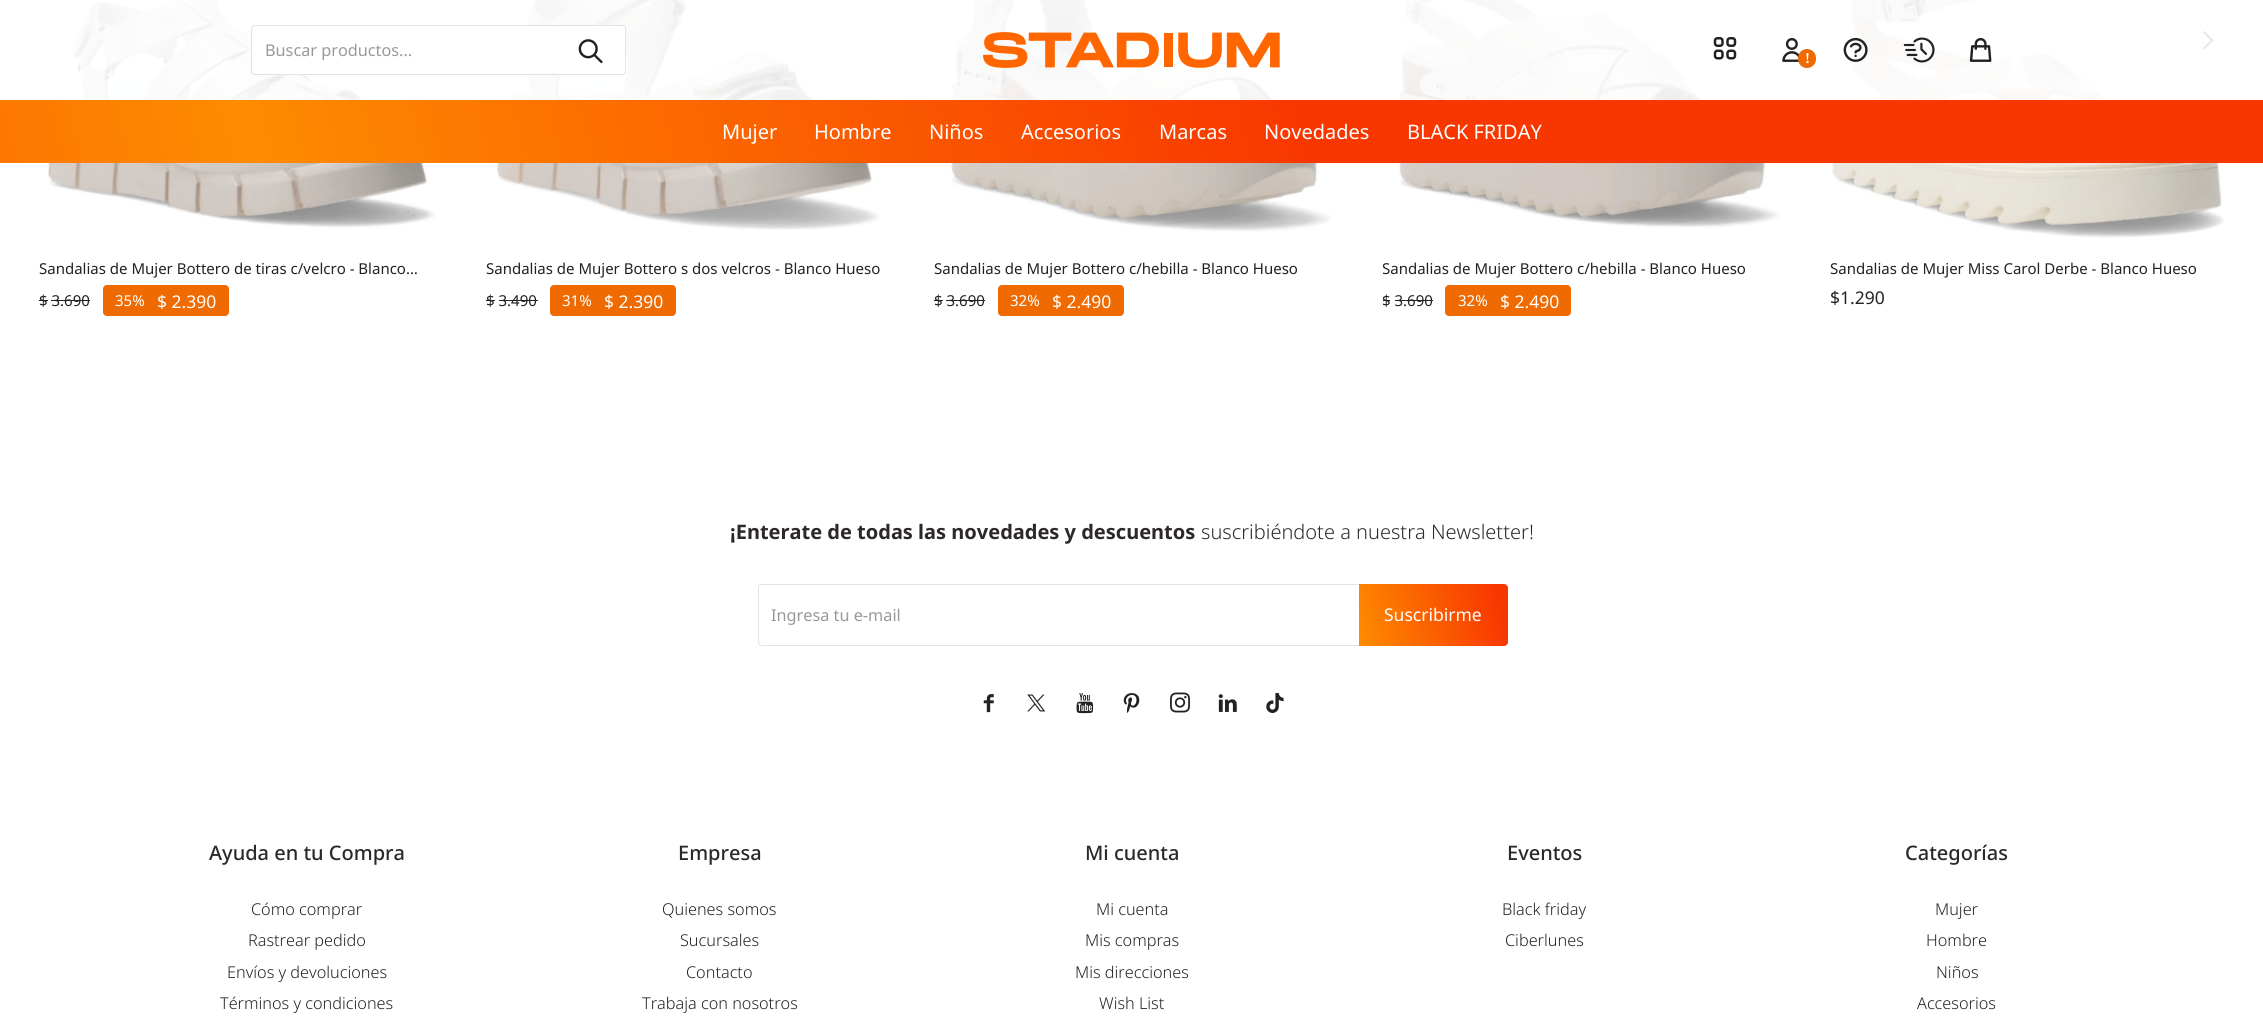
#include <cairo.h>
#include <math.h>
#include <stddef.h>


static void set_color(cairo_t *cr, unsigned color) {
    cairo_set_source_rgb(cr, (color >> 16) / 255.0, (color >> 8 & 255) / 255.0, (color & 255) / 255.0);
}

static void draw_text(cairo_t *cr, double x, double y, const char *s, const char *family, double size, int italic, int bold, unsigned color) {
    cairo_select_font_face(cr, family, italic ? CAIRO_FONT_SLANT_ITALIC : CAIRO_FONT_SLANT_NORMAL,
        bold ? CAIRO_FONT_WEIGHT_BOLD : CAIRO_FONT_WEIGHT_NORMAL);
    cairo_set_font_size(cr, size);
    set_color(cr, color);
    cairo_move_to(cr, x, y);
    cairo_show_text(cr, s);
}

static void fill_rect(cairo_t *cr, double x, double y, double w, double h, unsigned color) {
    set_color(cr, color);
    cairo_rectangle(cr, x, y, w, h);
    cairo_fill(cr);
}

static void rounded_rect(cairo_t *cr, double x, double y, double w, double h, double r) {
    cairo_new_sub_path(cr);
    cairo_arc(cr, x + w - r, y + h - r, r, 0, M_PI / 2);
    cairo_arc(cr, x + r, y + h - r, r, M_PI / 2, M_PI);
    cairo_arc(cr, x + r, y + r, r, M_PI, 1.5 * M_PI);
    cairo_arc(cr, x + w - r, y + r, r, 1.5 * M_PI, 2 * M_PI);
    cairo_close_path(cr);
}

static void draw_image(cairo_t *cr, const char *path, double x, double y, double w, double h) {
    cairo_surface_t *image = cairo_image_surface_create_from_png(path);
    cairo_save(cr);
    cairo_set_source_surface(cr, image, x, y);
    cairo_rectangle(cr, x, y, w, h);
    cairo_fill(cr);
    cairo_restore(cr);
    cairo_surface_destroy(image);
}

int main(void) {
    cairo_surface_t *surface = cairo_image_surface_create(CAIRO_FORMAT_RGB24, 2263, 1020);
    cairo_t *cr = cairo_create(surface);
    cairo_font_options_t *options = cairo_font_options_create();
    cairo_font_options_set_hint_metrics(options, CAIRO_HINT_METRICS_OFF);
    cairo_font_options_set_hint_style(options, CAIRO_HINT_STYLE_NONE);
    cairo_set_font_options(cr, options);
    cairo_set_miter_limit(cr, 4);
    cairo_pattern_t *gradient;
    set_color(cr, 0xFFFFFF);
    cairo_paint(cr);
    draw_image(cr, "assets/img13.png", 1832, 0, 392, 238);
    draw_image(cr, "assets/img8.png", 2202, 31, 12, 19);
    draw_image(cr, "assets/img9.png", 47, 0, 389, 228);
    draw_image(cr, "assets/img10.png", 497, 0, 383, 230);
    draw_image(cr, "assets/img11.png", 951, 0, 381, 232);
    draw_image(cr, "assets/img12.png", 1398, 0, 382, 228);
    cairo_set_source_rgba(cr, 1, 1, 1, 0.9);
    cairo_rectangle(cr, 72, 0, 2142, 100);
    cairo_fill(cr);
    set_color(cr, 0xFFFFFF);
    rounded_rect(cr, 251.5, 25.5, 374, 49, 3.5);
    cairo_fill_preserve(cr);
    set_color(cr, 0xE1E3E4);
    cairo_set_line_width(cr, 1);
    cairo_stroke(cr);
    draw_text(cr, 265, 56, "Buscar productos...", "Noto Sans", 16.25, 0, 0, 0x999999);
    set_color(cr, 0xFFFFFF);
    rounded_rect(cr, 551, 25, 75, 50, 4);
    cairo_fill(cr);
    set_color(cr, 0xE1E3E4);
    cairo_set_fill_rule(cr, CAIRO_FILL_RULE_EVEN_ODD);
    cairo_new_path(cr);
    cairo_move_to(cr, 555, 25);
    cairo_line_to(cr, 622, 25);
    cairo_curve_to(cr, 625, 25, 626, 27, 626, 29);
    cairo_line_to(cr, 626, 71);
    cairo_curve_to(cr, 626, 73, 625, 75, 622, 75);
    cairo_line_to(cr, 555, 75);
    cairo_curve_to(cr, 553, 75, 551, 73, 551, 71);
    cairo_line_to(cr, 551, 29);
    cairo_curve_to(cr, 551, 27, 553, 25, 555, 25);
    cairo_close_path(cr);
    cairo_move_to(cr, 555, 26);
    cairo_line_to(cr, 622, 26);
    cairo_curve_to(cr, 624, 26, 625, 27, 625, 29);
    cairo_line_to(cr, 625, 71);
    cairo_curve_to(cr, 625, 73, 624, 74, 622, 74);
    cairo_line_to(cr, 555, 74);
    cairo_curve_to(cr, 553, 74, 551, 73, 551, 71);
    cairo_line_to(cr, 551, 29);
    cairo_curve_to(cr, 551, 27, 553, 26, 555, 26);
    cairo_close_path(cr);
    cairo_fill(cr);
    draw_image(cr, "assets/img1.png", 578, 39, 25, 25);
    draw_image(cr, "assets/img2.png", 983, 32, 297, 36);
    draw_image(cr, "assets/img3.png", 1713, 37, 24, 23);
    draw_image(cr, "assets/img4.png", 1782, 38, 17, 24);
    set_color(cr, 0xEF6A00);
    rounded_rect(cr, 1798, 49, 18, 19, 9);
    cairo_fill(cr);
    draw_text(cr, 1805, 63, "!", "Liberation Serif", 15, 0, 1, 0xFFFFFF);
    draw_image(cr, "assets/img5.png", 1843, 37, 25, 25);
    draw_image(cr, "assets/img6.png", 1903, 37, 32, 26);
    draw_image(cr, "assets/img7.png", 1969, 38, 23, 24);
    gradient = cairo_pattern_create_linear(-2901, 539, 145, -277);
    cairo_pattern_add_color_stop_rgba(gradient, 0, 0.996, 0.549, 0, 1);
    cairo_pattern_add_color_stop_rgba(gradient, 0.33, 0.973, 0.212, 0, 1);
    cairo_pattern_add_color_stop_rgba(gradient, 0.67, 0.973, 0.212, 0, 1);
    cairo_pattern_add_color_stop_rgba(gradient, 1, 0.996, 0.549, 0, 1);
    cairo_set_source(cr, gradient);
    cairo_pattern_destroy(gradient);
    cairo_rectangle(cr, 0, 100, 246, 63);
    cairo_fill(cr);
    gradient = cairo_pattern_create_linear(347, 539, 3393, -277);
    cairo_pattern_add_color_stop_rgba(gradient, 0, 0.996, 0.549, 0, 1);
    cairo_pattern_add_color_stop_rgba(gradient, 0.33, 0.973, 0.212, 0, 1);
    cairo_pattern_add_color_stop_rgba(gradient, 0.67, 0.973, 0.212, 0, 1);
    cairo_pattern_add_color_stop_rgba(gradient, 1, 0.996, 0.549, 0, 1);
    cairo_set_source(cr, gradient);
    cairo_pattern_destroy(gradient);
    cairo_rectangle(cr, 246, 100, 2017, 63);
    cairo_fill(cr);
    draw_text(cr, 722, 139, "Mujer", "Noto Sans", 20, 0, 0, 0xFFFFFF);
    draw_text(cr, 814, 139, "Hombre", "Noto Sans", 20, 0, 0, 0xFFFFFF);
    draw_text(cr, 929, 139, "Niños", "Noto Sans", 20, 0, 0, 0xFFFFFF);
    draw_text(cr, 1021, 139, "Accesorios", "Noto Sans", 20, 0, 0, 0xFFFFFF);
    draw_text(cr, 1159, 139, "Marcas", "Noto Sans", 20, 0, 0, 0xFFFFFF);
    draw_text(cr, 1264, 139, "Novedades", "Noto Sans", 20, 0, 0, 0xFFFFFF);
    draw_text(cr, 1407, 139, "BLACK FRIDAY", "Noto Sans", 20, 0, 0, 0xFFFFFF);
    draw_text(cr, 39, 274, "Sandalias de Mujer Bottero de tiras c/velcro - Blanco…", "Noto Sans", 15, 0, 0, 0x222222);
    draw_text(cr, 39, 306, "$ 3.690", "Noto Sans", 15, 0, 0, 0x222222);
    fill_rect(cr, 39, 300, 9, 1, 0x222222);
    fill_rect(cr, 51, 300, 39, 1, 0x222222);
    set_color(cr, 0xEF6A00);
    rounded_rect(cr, 103, 285, 126, 31, 4);
    cairo_fill(cr);
    draw_text(cr, 115, 306, "35%", "Noto Sans", 15, 0, 0, 0xFFFFFF);
    draw_text(cr, 157, 308, "$ 2.390", "Noto Sans", 17.5, 0, 0, 0xFFFFFF);
    draw_text(cr, 486, 274, "Sandalias de Mujer Bottero s dos velcros - Blanco Hueso", "Noto Sans", 15, 0, 0, 0x222222);
    draw_text(cr, 486, 306, "$ 3.490", "Noto Sans", 15, 0, 0, 0x222222);
    fill_rect(cr, 486, 300, 9, 1, 0x222222);
    fill_rect(cr, 499, 300, 39, 1, 0x222222);
    set_color(cr, 0xEF6A00);
    rounded_rect(cr, 550, 285, 126, 31, 4);
    cairo_fill(cr);
    draw_text(cr, 562, 306, "31%", "Noto Sans", 15, 0, 0, 0xFFFFFF);
    draw_text(cr, 604, 308, "$ 2.390", "Noto Sans", 17.5, 0, 0, 0xFFFFFF);
    draw_text(cr, 934, 274, "Sandalias de Mujer Bottero c/hebilla - Blanco Hueso", "Noto Sans", 15, 0, 0, 0x222222);
    draw_text(cr, 934, 306, "$ 3.690", "Noto Sans", 15, 0, 0, 0x222222);
    fill_rect(cr, 934, 300, 9, 1, 0x222222);
    fill_rect(cr, 946, 300, 39, 1, 0x222222);
    set_color(cr, 0xEF6A00);
    rounded_rect(cr, 998, 285, 126, 31, 4);
    cairo_fill(cr);
    draw_text(cr, 1010, 306, "32%", "Noto Sans", 15, 0, 0, 0xFFFFFF);
    draw_text(cr, 1052, 308, "$ 2.490", "Noto Sans", 17.5, 0, 0, 0xFFFFFF);
    cairo_save(cr);
    cairo_set_fill_rule(cr, CAIRO_FILL_RULE_WINDING);
    cairo_rectangle(cr, 1383, 259, 397, 20);
    cairo_clip(cr);
    draw_text(cr, 1382, 274, "Sandalias de Mujer Bottero c/hebilla - Blanco Hueso", "Noto Sans", 15, 0, 0, 0x222222);
    cairo_restore(cr);
    draw_text(cr, 1382, 306, "$ 3.690", "Noto Sans", 15, 0, 0, 0x222222);
    fill_rect(cr, 1383, 300, 7, 1, 0x222222);
    fill_rect(cr, 1395, 300, 38, 1, 0x222222);
    set_color(cr, 0xEF6A00);
    rounded_rect(cr, 1445, 285, 126, 31, 4);
    cairo_fill(cr);
    draw_text(cr, 1458, 306, "32%", "Noto Sans", 15, 0, 0, 0xFFFFFF);
    draw_text(cr, 1500, 308, "$ 2.490", "Noto Sans", 17.5, 0, 0, 0xFFFFFF);
    draw_text(cr, 1830, 274, "Sandalias de Mujer Miss Carol Derbe - Blanco Hueso", "Noto Sans", 15, 0, 0, 0x222222);
    draw_text(cr, 1830, 304, "$1.290", "Noto Sans", 17.5, 0, 0, 0x222222);
    draw_text(cr, 730, 539, "¡Enterate de todas las novedades y descuentos", "Noto Sans", 20, 0, 1, 0x2D2929);
    draw_text(cr, 1201, 539, "suscribiéndote a nuestra Newsletter!", "Noto Sans Light", 20, 0, 0, 0x2D2929);
    rounded_rect(cr, 758.5, 584.5, 749, 61, 3.5);
    set_color(cr, 0xE1E3E4);
    cairo_stroke(cr);
    draw_text(cr, 771, 621, "Ingresa tu e-mail", "Noto Sans", 16.25, 0, 0, 0x999999);
    gradient = cairo_pattern_create_linear(1366, 673, 1798, 557);
    cairo_pattern_add_color_stop_rgba(gradient, 0, 0.996, 0.549, 0, 1);
    cairo_pattern_add_color_stop_rgba(gradient, 0.33, 0.973, 0.212, 0, 1);
    cairo_pattern_add_color_stop_rgba(gradient, 0.67, 0.973, 0.212, 0, 1);
    cairo_pattern_add_color_stop_rgba(gradient, 1, 0.996, 0.549, 0, 1);
    cairo_set_source(cr, gradient);
    cairo_pattern_destroy(gradient);
    cairo_new_path(cr);
    cairo_move_to(cr, 1359, 584);
    cairo_line_to(cr, 1504, 584);
    cairo_curve_to(cr, 1506, 584, 1508, 586, 1508, 588);
    cairo_line_to(cr, 1508, 642);
    cairo_curve_to(cr, 1508, 644, 1506, 646, 1504, 646);
    cairo_line_to(cr, 1359, 646);
    cairo_close_path(cr);
    cairo_fill(cr);
    draw_text(cr, 1384, 621, "Suscribirme", "Noto Sans", 17.5, 0, 0, 0xFFFFFF);
    draw_image(cr, "assets/img14.png", 983, 694, 11, 19);
    draw_image(cr, "assets/img15.png", 1027, 694, 19, 18);
    draw_image(cr, "assets/img16.png", 1076, 693, 18, 21);
    draw_image(cr, "assets/img17.png", 1123, 693, 17, 20);
    draw_image(cr, "assets/img18.png", 1170, 692, 20, 21);
    draw_image(cr, "assets/img19.png", 1218, 694, 19, 18);
    draw_image(cr, "assets/img20.png", 1266, 693, 18, 20);
    draw_text(cr, 209, 860, "Ayuda en tu Compra", "Noto Sans Medium", 20, 0, 0, 0x2D2929);
    draw_text(cr, 251, 915, "Cómo comprar", "Noto Sans Light", 16.25, 0, 0, 0x222222);
    draw_text(cr, 248, 946, "Rastrear pedido", "Noto Sans Light", 16.25, 0, 0, 0x222222);
    draw_text(cr, 227, 978, "Envíos y devoluciones", "Noto Sans Light", 16.25, 0, 0, 0x222222);
    draw_text(cr, 220, 1009, "Términos y condiciones", "Noto Sans Light", 16.25, 0, 0, 0x222222);
    draw_text(cr, 678, 860, "Empresa", "Noto Sans Medium", 20, 0, 0, 0x2D2929);
    draw_text(cr, 662, 915, "Quienes somos", "Noto Sans Light", 16.25, 0, 0, 0x222222);
    draw_text(cr, 680, 946, "Sucursales", "Noto Sans Light", 16.25, 0, 0, 0x222222);
    draw_text(cr, 686, 978, "Contacto", "Noto Sans Light", 16.25, 0, 0, 0x222222);
    draw_text(cr, 642, 1009, "Trabaja con nosotros", "Noto Sans Light", 16.25, 0, 0, 0x222222);
    draw_text(cr, 1085, 860, "Mi cuenta", "Noto Sans Medium", 20, 0, 0, 0x2D2929);
    draw_text(cr, 1096, 915, "Mi cuenta", "Noto Sans Light", 16.25, 0, 0, 0x222222);
    draw_text(cr, 1085, 946, "Mis compras", "Noto Sans Light", 16.25, 0, 0, 0x222222);
    draw_text(cr, 1075, 978, "Mis direcciones", "Noto Sans Light", 16.25, 0, 0, 0x222222);
    draw_text(cr, 1099, 1009, "Wish List", "Noto Sans Light", 16.25, 0, 0, 0x222222);
    draw_text(cr, 1507, 860, "Eventos", "Noto Sans Medium", 20, 0, 0, 0x2D2929);
    draw_text(cr, 1502, 915, "Black friday", "Noto Sans Light", 16.25, 0, 0, 0x222222);
    draw_text(cr, 1505, 946, "Ciberlunes", "Noto Sans Light", 16.25, 0, 0, 0x222222);
    draw_text(cr, 1905, 860, "Categorías", "Noto Sans Medium", 20, 0, 0, 0x2D2929);
    draw_text(cr, 1935, 915, "Mujer", "Noto Sans Light", 16.25, 0, 0, 0x222222);
    draw_text(cr, 1926, 946, "Hombre", "Noto Sans Light", 16.25, 0, 0, 0x222222);
    draw_text(cr, 1936, 978, "Niños", "Noto Sans Light", 16.25, 0, 0, 0x222222);
    draw_text(cr, 1917, 1009, "Accesorios", "Noto Sans Light", 16.25, 0, 0, 0x222222);
    cairo_surface_write_to_png(surface, "output.png");
    cairo_font_options_destroy(options);
    cairo_destroy(cr);
    cairo_surface_destroy(surface);
    return 0;
}
